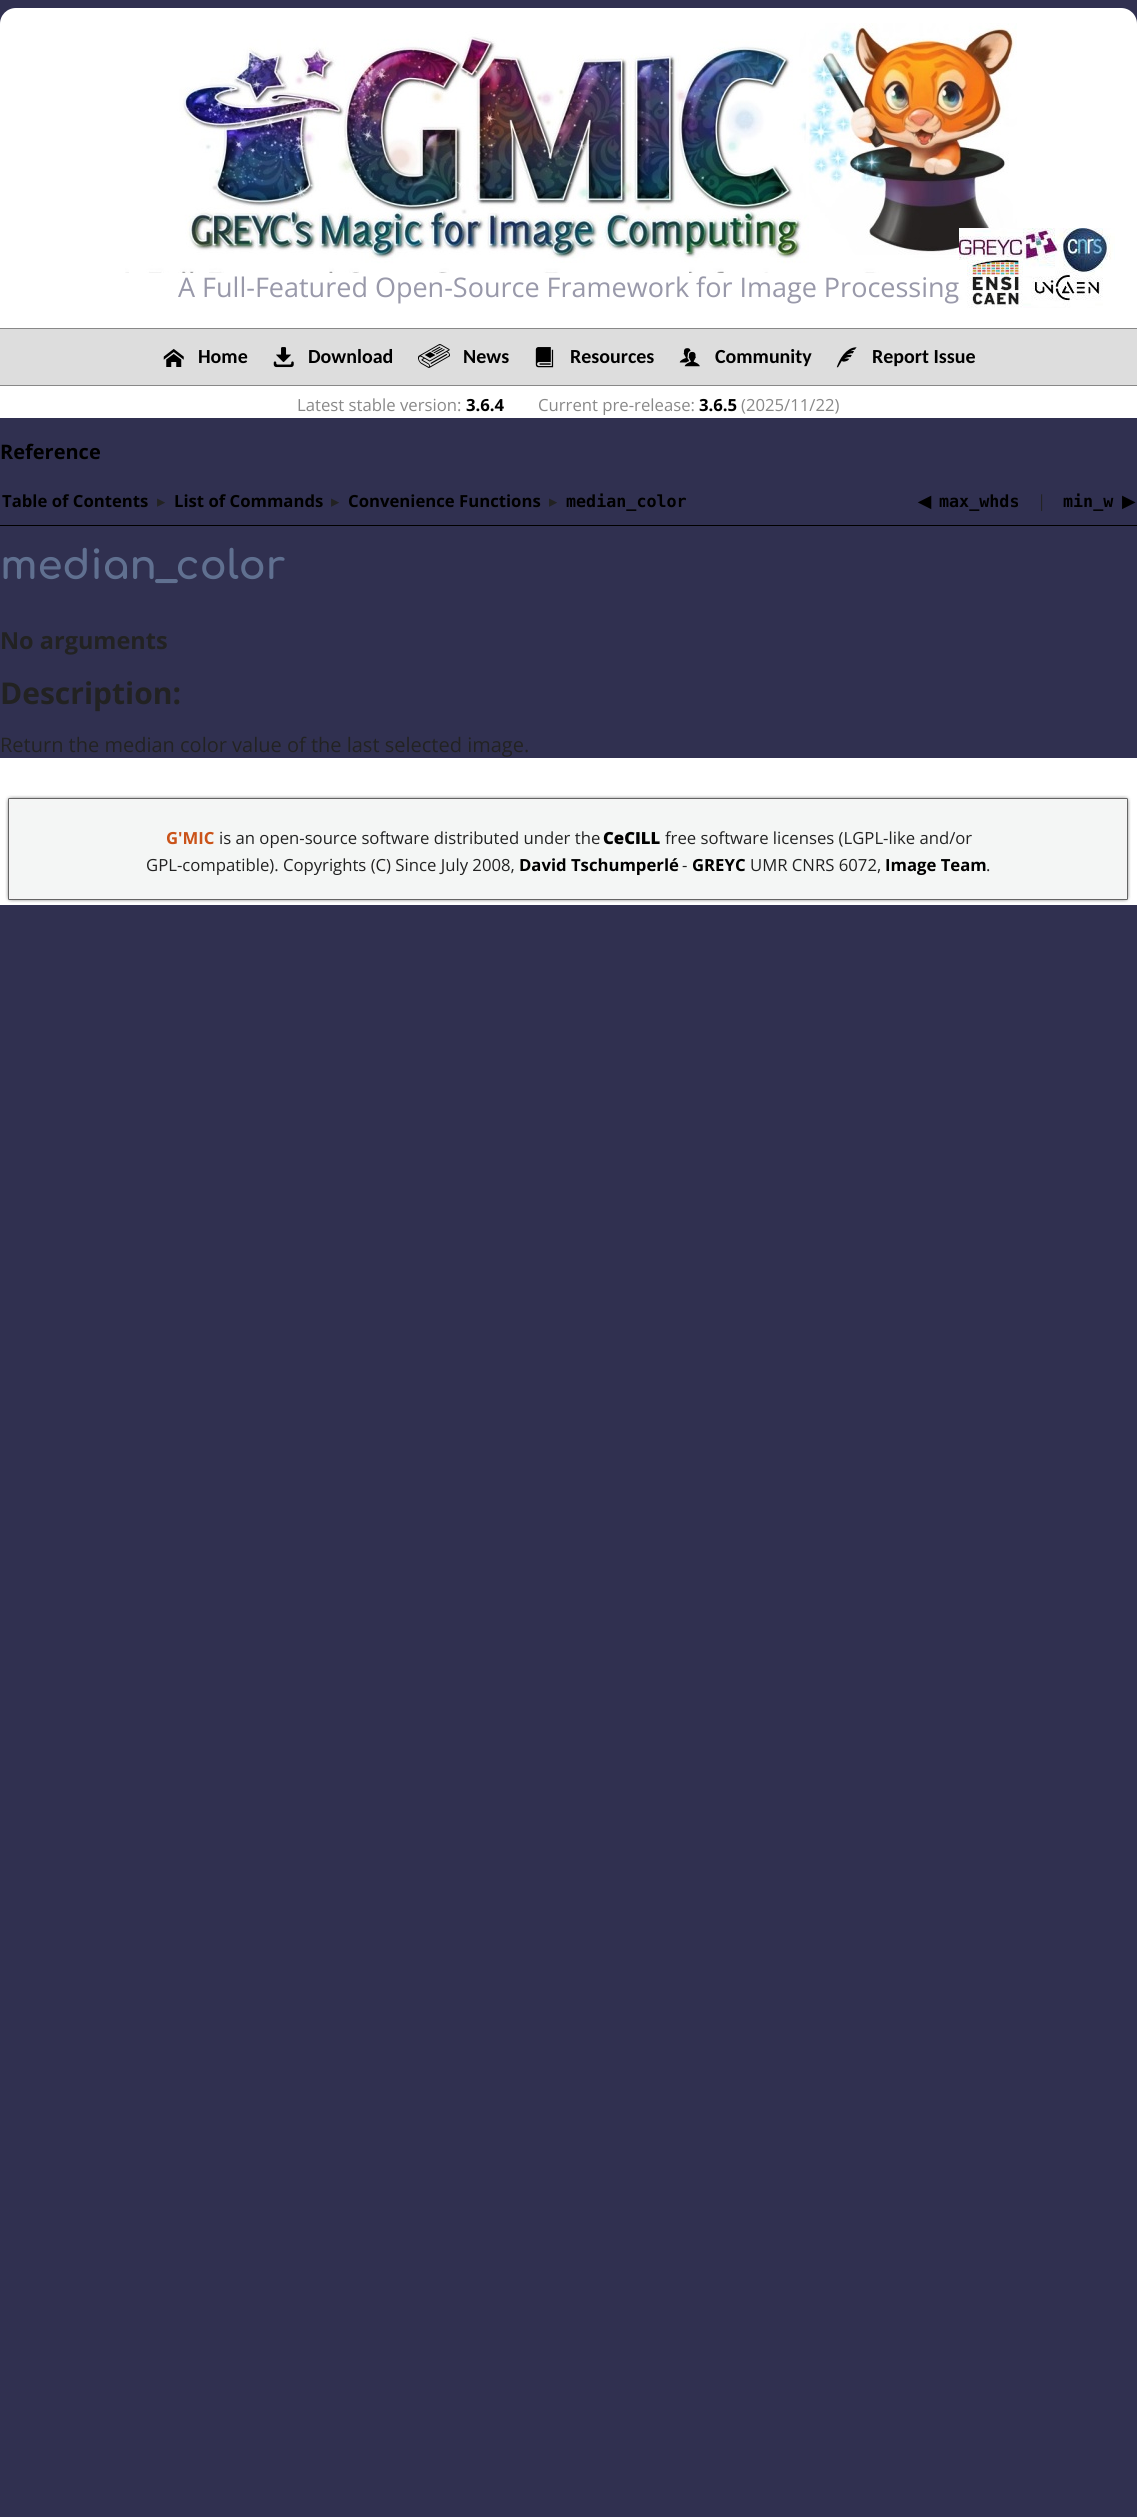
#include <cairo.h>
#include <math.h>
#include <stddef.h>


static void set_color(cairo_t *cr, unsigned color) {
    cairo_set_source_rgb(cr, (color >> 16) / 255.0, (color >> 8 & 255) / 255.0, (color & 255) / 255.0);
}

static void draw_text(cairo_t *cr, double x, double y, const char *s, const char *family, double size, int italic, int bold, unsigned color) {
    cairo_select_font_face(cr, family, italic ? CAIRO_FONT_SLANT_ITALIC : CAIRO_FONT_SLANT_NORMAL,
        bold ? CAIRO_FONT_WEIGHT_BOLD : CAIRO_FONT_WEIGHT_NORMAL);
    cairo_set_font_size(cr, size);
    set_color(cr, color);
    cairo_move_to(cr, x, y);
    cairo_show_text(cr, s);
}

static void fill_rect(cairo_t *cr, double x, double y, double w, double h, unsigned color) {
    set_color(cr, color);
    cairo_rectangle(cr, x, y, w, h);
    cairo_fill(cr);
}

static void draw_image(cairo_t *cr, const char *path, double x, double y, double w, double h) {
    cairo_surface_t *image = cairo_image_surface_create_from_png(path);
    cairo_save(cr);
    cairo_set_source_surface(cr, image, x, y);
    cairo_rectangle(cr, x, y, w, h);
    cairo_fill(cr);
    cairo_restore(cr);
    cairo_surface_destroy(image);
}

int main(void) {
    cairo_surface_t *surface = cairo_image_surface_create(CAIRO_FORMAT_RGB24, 1137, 2517);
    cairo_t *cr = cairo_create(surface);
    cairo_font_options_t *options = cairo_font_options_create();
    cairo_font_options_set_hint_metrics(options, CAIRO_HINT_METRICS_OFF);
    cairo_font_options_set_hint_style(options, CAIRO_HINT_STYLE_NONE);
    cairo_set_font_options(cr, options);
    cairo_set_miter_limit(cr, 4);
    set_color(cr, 0x303050);
    cairo_paint(cr);
    set_color(cr, 0xFFFFFF);
    cairo_new_path(cr);
    cairo_move_to(cr, 16, 8);
    cairo_line_to(cr, 1121, 8);
    cairo_curve_to(cr, 1130, 8, 1137, 15, 1137, 24);
    cairo_line_to(cr, 1137, 418);
    cairo_line_to(cr, 0, 418);
    cairo_line_to(cr, 0, 24);
    cairo_curve_to(cr, 0, 15, 7, 8, 16, 8);
    cairo_close_path(cr);
    cairo_fill(cr);
    draw_image(cr, "assets/img1.png", 125, 23, 892, 250);
    draw_image(cr, "assets/img2.png", 959, 228, 156, 80);
    draw_text(cr, 178, 297, "A Full-Featured Open-Source Framework for Image Processing", "Open Sans", 27, 0, 0, 0x9999AA);
    fill_rect(cr, 0, 328, 1137, 1, 0x888888);
    fill_rect(cr, 0, 329, 1137, 56, 0xDDDDDD);
    draw_image(cr, "assets/img3.png", 163, 348, 21, 19);
    draw_text(cr, 198, 363, "Home", "Carlito", 20, 0, 1, 0x000000);
    draw_image(cr, "assets/img4.png", 273, 347, 21, 21);
    draw_text(cr, 308, 363, "Download", "Carlito", 20, 0, 1, 0x000000);
    draw_image(cr, "assets/img5.png", 418, 344, 32, 24);
    draw_text(cr, 463, 363, "News", "Carlito", 20, 0, 1, 0x000000);
    draw_image(cr, "assets/img6.png", 535, 347, 19, 21);
    draw_text(cr, 570, 363, "Resources", "Carlito", 20, 0, 1, 0x000000);
    draw_image(cr, "assets/img7.png", 679, 348, 21, 19);
    draw_text(cr, 715, 363, "Community", "Carlito", 20, 0, 1, 0x000000);
    draw_image(cr, "assets/img8.png", 836, 347, 21, 21);
    draw_text(cr, 872, 363, "Report Issue", "Carlito", 20, 0, 1, 0x000000);
    fill_rect(cr, 0, 385, 1137, 1, 0x888888);
    draw_text(cr, 297, 411, "Latest stable version:", "Open Sans", 16.7, 0, 0, 0x888888);
    draw_text(cr, 466, 411, "3.6.4", "Open Sans", 16.7, 0, 1, 0x000000);
    draw_text(cr, 538, 411, "Current pre-release:", "Open Sans", 16.7, 0, 0, 0x888888);
    draw_text(cr, 699, 411, "3.6.5", "Open Sans", 16.7, 0, 1, 0x000000);
    draw_text(cr, 741, 411, "(2025/11/22)", "Open Sans", 16.7, 0, 0, 0x888888);
    draw_text(cr, 0, 459, "Reference", "Open Sans", 20, 0, 1, 0x000000);
    fill_rect(cr, 0, 525, 1137, 1, 0x000000);
    draw_text(cr, 2, 507, "Table of Contents", "Open Sans", 16.7, 0, 1, 0x000000);
    draw_text(cr, 157, 507, "▸", "DejaVu Sans", 16.7, 0, 0, 0x222222);
    draw_text(cr, 174, 507, "List of Commands", "Open Sans", 16.7, 0, 1, 0x000000);
    draw_text(cr, 331, 507, "▸", "DejaVu Sans", 16.7, 0, 0, 0x222222);
    draw_text(cr, 348, 507, "Convenience Functions", "Open Sans", 16.7, 0, 1, 0x000000);
    draw_text(cr, 549, 507, "▸", "DejaVu Sans", 16.7, 0, 0, 0x222222);
    draw_text(cr, 566, 507, "median_color", "DejaVu Sans Mono", 16.7, 0, 1, 0x000000);
    draw_text(cr, 918, 507, "◀", "DejaVu Sans", 16.7, 0, 1, 0x000000);
    draw_text(cr, 939, 507, "max_whds", "DejaVu Sans Mono", 16.7, 0, 1, 0x000000);
    draw_text(cr, 1037, 507, "|", "Open Sans", 16.7, 0, 0, 0x222222);
    draw_text(cr, 1063, 507, "min_w", "DejaVu Sans Mono", 16.7, 0, 1, 0x000000);
    draw_text(cr, 1122, 507, "▶", "DejaVu Sans", 16.7, 0, 1, 0x000000);
    draw_text(cr, 0, 579, "median_color", "Comfortaa", 40, 0, 1, 0x607090);
    draw_text(cr, 0, 649, "No arguments", "Open Sans", 23.5, 0, 1, 0x222222);
    draw_text(cr, 0, 704, "Description:", "Open Sans", 30, 0, 1, 0x222222);
    draw_text(cr, 0, 752, "Return the median color value of the last selected image.", "Open Sans", 20, 0, 0, 0x222222);
    draw_image(cr, "assets/img9.png", 0, 758, 16, 50);
    draw_image(cr, "assets/img10.png", 16, 758, 1105, 50);
    draw_image(cr, "assets/img11.png", 1121, 758, 16, 50);
    draw_image(cr, "assets/img12.png", 0, 808, 16, 87);
    fill_rect(cr, 16, 808, 1105, 87, 0xF4F6F5);
    draw_text(cr, 166, 844, "G'MIC", "Open Sans", 16.7, 0, 1, 0xCA5319);
    draw_text(cr, 219, 844, "is an open-source software distributed under the", "Open Sans", 16.7, 0, 0, 0x222222);
    draw_text(cr, 603, 844, "CeCILL", "Open Sans ExtraBold", 16.7, 0, 0, 0x000000);
    draw_text(cr, 665, 844, "free software licenses (LGPL-like and/or", "Open Sans", 16.7, 0, 0, 0x222222);
    draw_text(cr, 146, 871, "GPL-compatible). Copyrights (C) Since July 2008,", "Open Sans", 16.7, 0, 0, 0x222222);
    draw_text(cr, 519, 871, "David Tschumperlé", "Open Sans", 16.7, 0, 1, 0x000000);
    draw_text(cr, 682, 871, "-", "Open Sans", 16.7, 0, 0, 0x222222);
    draw_text(cr, 692, 871, "GREYC", "Open Sans", 16.7, 0, 1, 0x000000);
    draw_text(cr, 750, 871, "UMR CNRS 6072,", "Open Sans", 16.7, 0, 0, 0x222222);
    draw_text(cr, 885, 871, "Image Team", "Open Sans", 16.7, 0, 1, 0x000000);
    draw_text(cr, 986, 871, ".", "Open Sans", 16.7, 0, 0, 0x222222);
    draw_image(cr, "assets/img13.png", 1121, 808, 16, 87);
    draw_image(cr, "assets/img14.png", 0, 895, 192, 10);
    draw_image(cr, "assets/img15.png", 192, 895, 929, 10);
    draw_image(cr, "assets/img16.png", 1121, 895, 16, 10);
    cairo_surface_write_to_png(surface, "output.png");
    cairo_font_options_destroy(options);
    cairo_destroy(cr);
    cairo_surface_destroy(surface);
    return 0;
}
